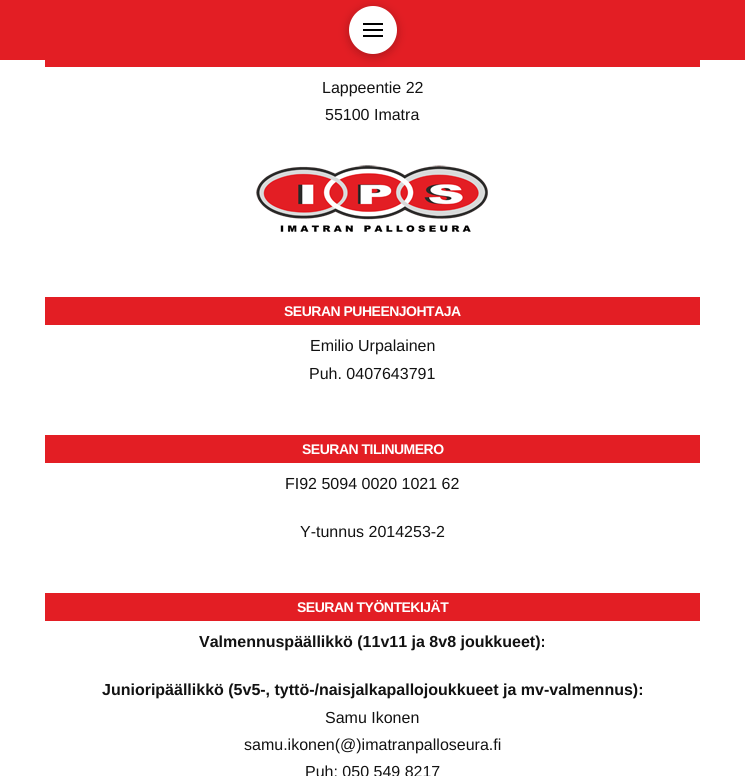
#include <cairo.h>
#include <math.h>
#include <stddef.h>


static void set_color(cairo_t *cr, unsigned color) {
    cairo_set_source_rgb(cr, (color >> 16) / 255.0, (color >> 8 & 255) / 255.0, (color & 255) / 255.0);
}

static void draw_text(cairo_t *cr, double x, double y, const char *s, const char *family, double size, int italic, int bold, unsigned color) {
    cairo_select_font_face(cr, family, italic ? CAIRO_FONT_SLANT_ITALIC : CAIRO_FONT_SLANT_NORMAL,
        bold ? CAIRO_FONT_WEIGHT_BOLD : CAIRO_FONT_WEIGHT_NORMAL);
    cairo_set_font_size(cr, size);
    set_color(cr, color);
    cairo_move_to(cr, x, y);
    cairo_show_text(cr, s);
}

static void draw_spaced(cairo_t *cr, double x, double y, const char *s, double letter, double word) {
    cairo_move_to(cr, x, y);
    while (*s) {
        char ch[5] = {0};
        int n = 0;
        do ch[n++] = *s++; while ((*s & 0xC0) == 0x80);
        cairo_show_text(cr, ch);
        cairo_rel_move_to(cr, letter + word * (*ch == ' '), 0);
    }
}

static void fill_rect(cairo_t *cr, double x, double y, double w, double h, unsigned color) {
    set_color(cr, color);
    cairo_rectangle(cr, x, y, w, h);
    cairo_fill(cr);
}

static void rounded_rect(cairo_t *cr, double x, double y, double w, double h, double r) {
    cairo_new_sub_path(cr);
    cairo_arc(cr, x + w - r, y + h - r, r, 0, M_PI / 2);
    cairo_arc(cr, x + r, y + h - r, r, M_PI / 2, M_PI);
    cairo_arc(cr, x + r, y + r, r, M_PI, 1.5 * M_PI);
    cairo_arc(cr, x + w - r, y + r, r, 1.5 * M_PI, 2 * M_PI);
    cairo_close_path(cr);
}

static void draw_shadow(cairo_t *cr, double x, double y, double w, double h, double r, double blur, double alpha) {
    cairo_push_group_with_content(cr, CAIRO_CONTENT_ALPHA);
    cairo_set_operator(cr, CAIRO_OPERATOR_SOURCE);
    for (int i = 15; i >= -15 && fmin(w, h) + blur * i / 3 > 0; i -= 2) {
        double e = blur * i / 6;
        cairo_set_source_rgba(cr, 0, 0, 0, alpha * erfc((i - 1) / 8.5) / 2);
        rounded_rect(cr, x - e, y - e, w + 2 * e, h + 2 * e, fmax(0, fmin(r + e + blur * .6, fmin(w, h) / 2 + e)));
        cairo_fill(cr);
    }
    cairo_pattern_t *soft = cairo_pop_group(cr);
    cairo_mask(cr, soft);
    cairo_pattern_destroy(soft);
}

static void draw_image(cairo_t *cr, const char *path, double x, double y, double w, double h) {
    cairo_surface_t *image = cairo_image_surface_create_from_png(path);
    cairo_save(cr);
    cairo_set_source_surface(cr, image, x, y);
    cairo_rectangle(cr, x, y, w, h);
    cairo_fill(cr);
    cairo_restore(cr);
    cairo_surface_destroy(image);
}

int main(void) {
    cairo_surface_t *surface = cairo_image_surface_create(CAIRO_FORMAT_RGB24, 745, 776);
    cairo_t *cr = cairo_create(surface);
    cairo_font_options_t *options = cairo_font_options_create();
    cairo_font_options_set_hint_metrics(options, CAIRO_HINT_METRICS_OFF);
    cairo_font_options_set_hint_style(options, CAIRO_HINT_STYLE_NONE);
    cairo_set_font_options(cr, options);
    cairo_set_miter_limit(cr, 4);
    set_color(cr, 0xFFFFFF);
    cairo_paint(cr);
    fill_rect(cr, 0, 0, 745, 60, 0xE31E24);
    fill_rect(cr, 45, 60, 655, 7, 0xE31E24);
    set_color(cr, 0x000000);
    draw_shadow(cr, 349, 8, 48, 48, 24, 5, 0.25);
    set_color(cr, 0xFFFFFF);
    cairo_arc(cr, 373, 30, 24, 0, 2 * M_PI);
    cairo_fill(cr);
    fill_rect(cr, 363, 23, 20, 2, 0x000000);
    fill_rect(cr, 363, 29, 20, 2, 0x000000);
    fill_rect(cr, 363, 35, 20, 2, 0x000000);
    draw_text(cr, 322, 93, "Lappeentie 22", "Liberation Sans", 16, 0, 0, 0x121212);
    draw_text(cr, 325, 120, "55100 Imatra", "Liberation Sans", 16, 0, 0, 0x121212);
    draw_image(cr, "assets/img1.png", 256, 165, 232, 67);
    fill_rect(cr, 45, 297, 655, 28, 0xE31E24);
    cairo_select_font_face(cr, "Liberation Sans", CAIRO_FONT_SLANT_NORMAL, CAIRO_FONT_WEIGHT_BOLD);
    cairo_set_font_size(cr, 14);
    set_color(cr, 0xFFFFFF);
    draw_spaced(cr, 284, 316, "SEURAN PUHEENJOHTAJA", -0.5, 0);
    draw_text(cr, 310, 351, "Emilio Urpalainen", "Liberation Sans", 16, 0, 0, 0x121212);
    draw_text(cr, 309, 379, "Puh. 0407643791", "Liberation Sans", 16, 0, 0, 0x121212);
    fill_rect(cr, 45, 435, 655, 28, 0xE31E24);
    cairo_select_font_face(cr, "Liberation Sans", CAIRO_FONT_SLANT_NORMAL, CAIRO_FONT_WEIGHT_BOLD);
    cairo_set_font_size(cr, 14);
    set_color(cr, 0xFFFFFF);
    draw_spaced(cr, 302, 454, "SEURAN TILINUMERO", -0.5, 0);
    draw_text(cr, 285, 489, "FI92 5094 0020 1021 62", "Liberation Sans", 16, 0, 0, 0x121212);
    draw_text(cr, 300, 537, "Y-tunnus 2014253-2", "Liberation Sans", 16, 0, 0, 0x121212);
    fill_rect(cr, 45, 593, 655, 28, 0xE31E24);
    cairo_select_font_face(cr, "Liberation Sans", CAIRO_FONT_SLANT_NORMAL, CAIRO_FONT_WEIGHT_BOLD);
    cairo_set_font_size(cr, 14);
    set_color(cr, 0xFFFFFF);
    draw_spaced(cr, 297, 612, "SEURAN TYÖNTEKIJÄT", -0.5, 0);
    draw_text(cr, 199, 647, "Valmennuspäällikkö (11v11 ja 8v8 joukkueet):", "Liberation Sans", 16, 0, 1, 0x121212);
    draw_text(cr, 102, 695, "Junioripäällikkö (5v5-, tyttö-/naisjalkapallojoukkueet ja mv-valmennus):", "Liberation Sans", 16, 0, 1, 0x121212);
    draw_text(cr, 325, 723, "Samu Ikonen", "Liberation Sans", 16, 0, 0, 0x121212);
    draw_text(cr, 244, 750, "samu.ikonen(@)imatranpalloseura.fi", "Liberation Sans", 16, 0, 0, 0x121212);
    draw_text(cr, 305, 777, "Puh: 050 549 8217", "Liberation Sans", 16, 0, 0, 0x121212);
    cairo_surface_write_to_png(surface, "output.png");
    cairo_font_options_destroy(options);
    cairo_destroy(cr);
    cairo_surface_destroy(surface);
    return 0;
}
